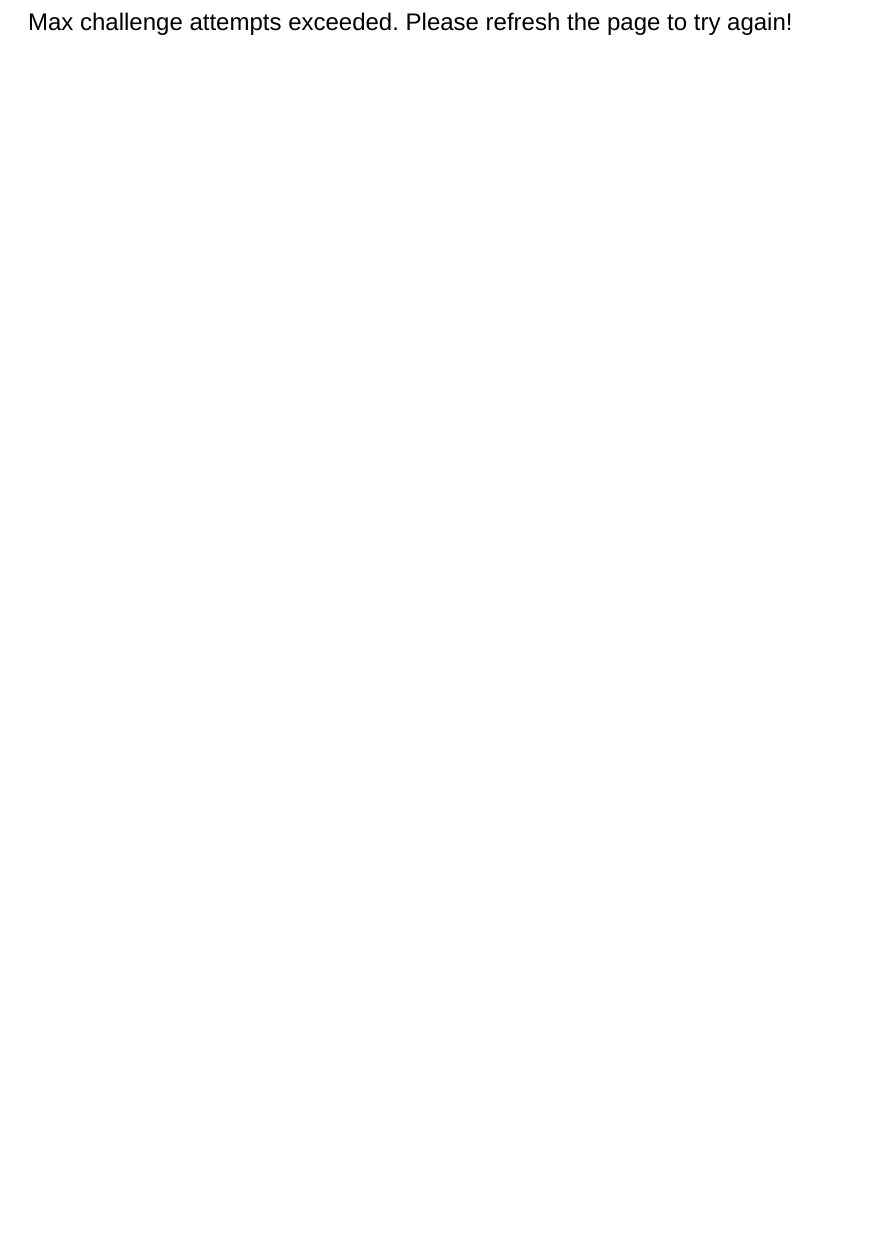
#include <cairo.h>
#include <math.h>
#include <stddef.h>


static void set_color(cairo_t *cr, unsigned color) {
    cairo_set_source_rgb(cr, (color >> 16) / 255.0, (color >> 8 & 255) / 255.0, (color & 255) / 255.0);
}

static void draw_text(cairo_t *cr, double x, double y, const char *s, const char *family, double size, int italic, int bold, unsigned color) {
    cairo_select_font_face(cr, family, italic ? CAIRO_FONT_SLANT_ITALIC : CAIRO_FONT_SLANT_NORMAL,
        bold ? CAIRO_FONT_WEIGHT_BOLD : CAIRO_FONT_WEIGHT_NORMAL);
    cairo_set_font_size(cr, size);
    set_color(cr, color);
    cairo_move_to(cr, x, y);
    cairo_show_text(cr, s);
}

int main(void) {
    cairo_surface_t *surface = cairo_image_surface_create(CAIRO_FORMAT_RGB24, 894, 1247);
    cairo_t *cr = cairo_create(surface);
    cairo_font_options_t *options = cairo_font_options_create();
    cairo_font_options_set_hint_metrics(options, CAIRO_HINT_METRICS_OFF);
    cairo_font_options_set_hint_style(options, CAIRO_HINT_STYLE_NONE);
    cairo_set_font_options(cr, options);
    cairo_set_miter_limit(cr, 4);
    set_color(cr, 0xFFFFFF);
    cairo_paint(cr);
    draw_text(cr, 28, 30, "Max challenge attempts exceeded. Please refresh the page to try again!", "Liberation Sans", 24, 0, 0, 0x000000);
    cairo_surface_write_to_png(surface, "output.png");
    cairo_font_options_destroy(options);
    cairo_destroy(cr);
    cairo_surface_destroy(surface);
    return 0;
}
